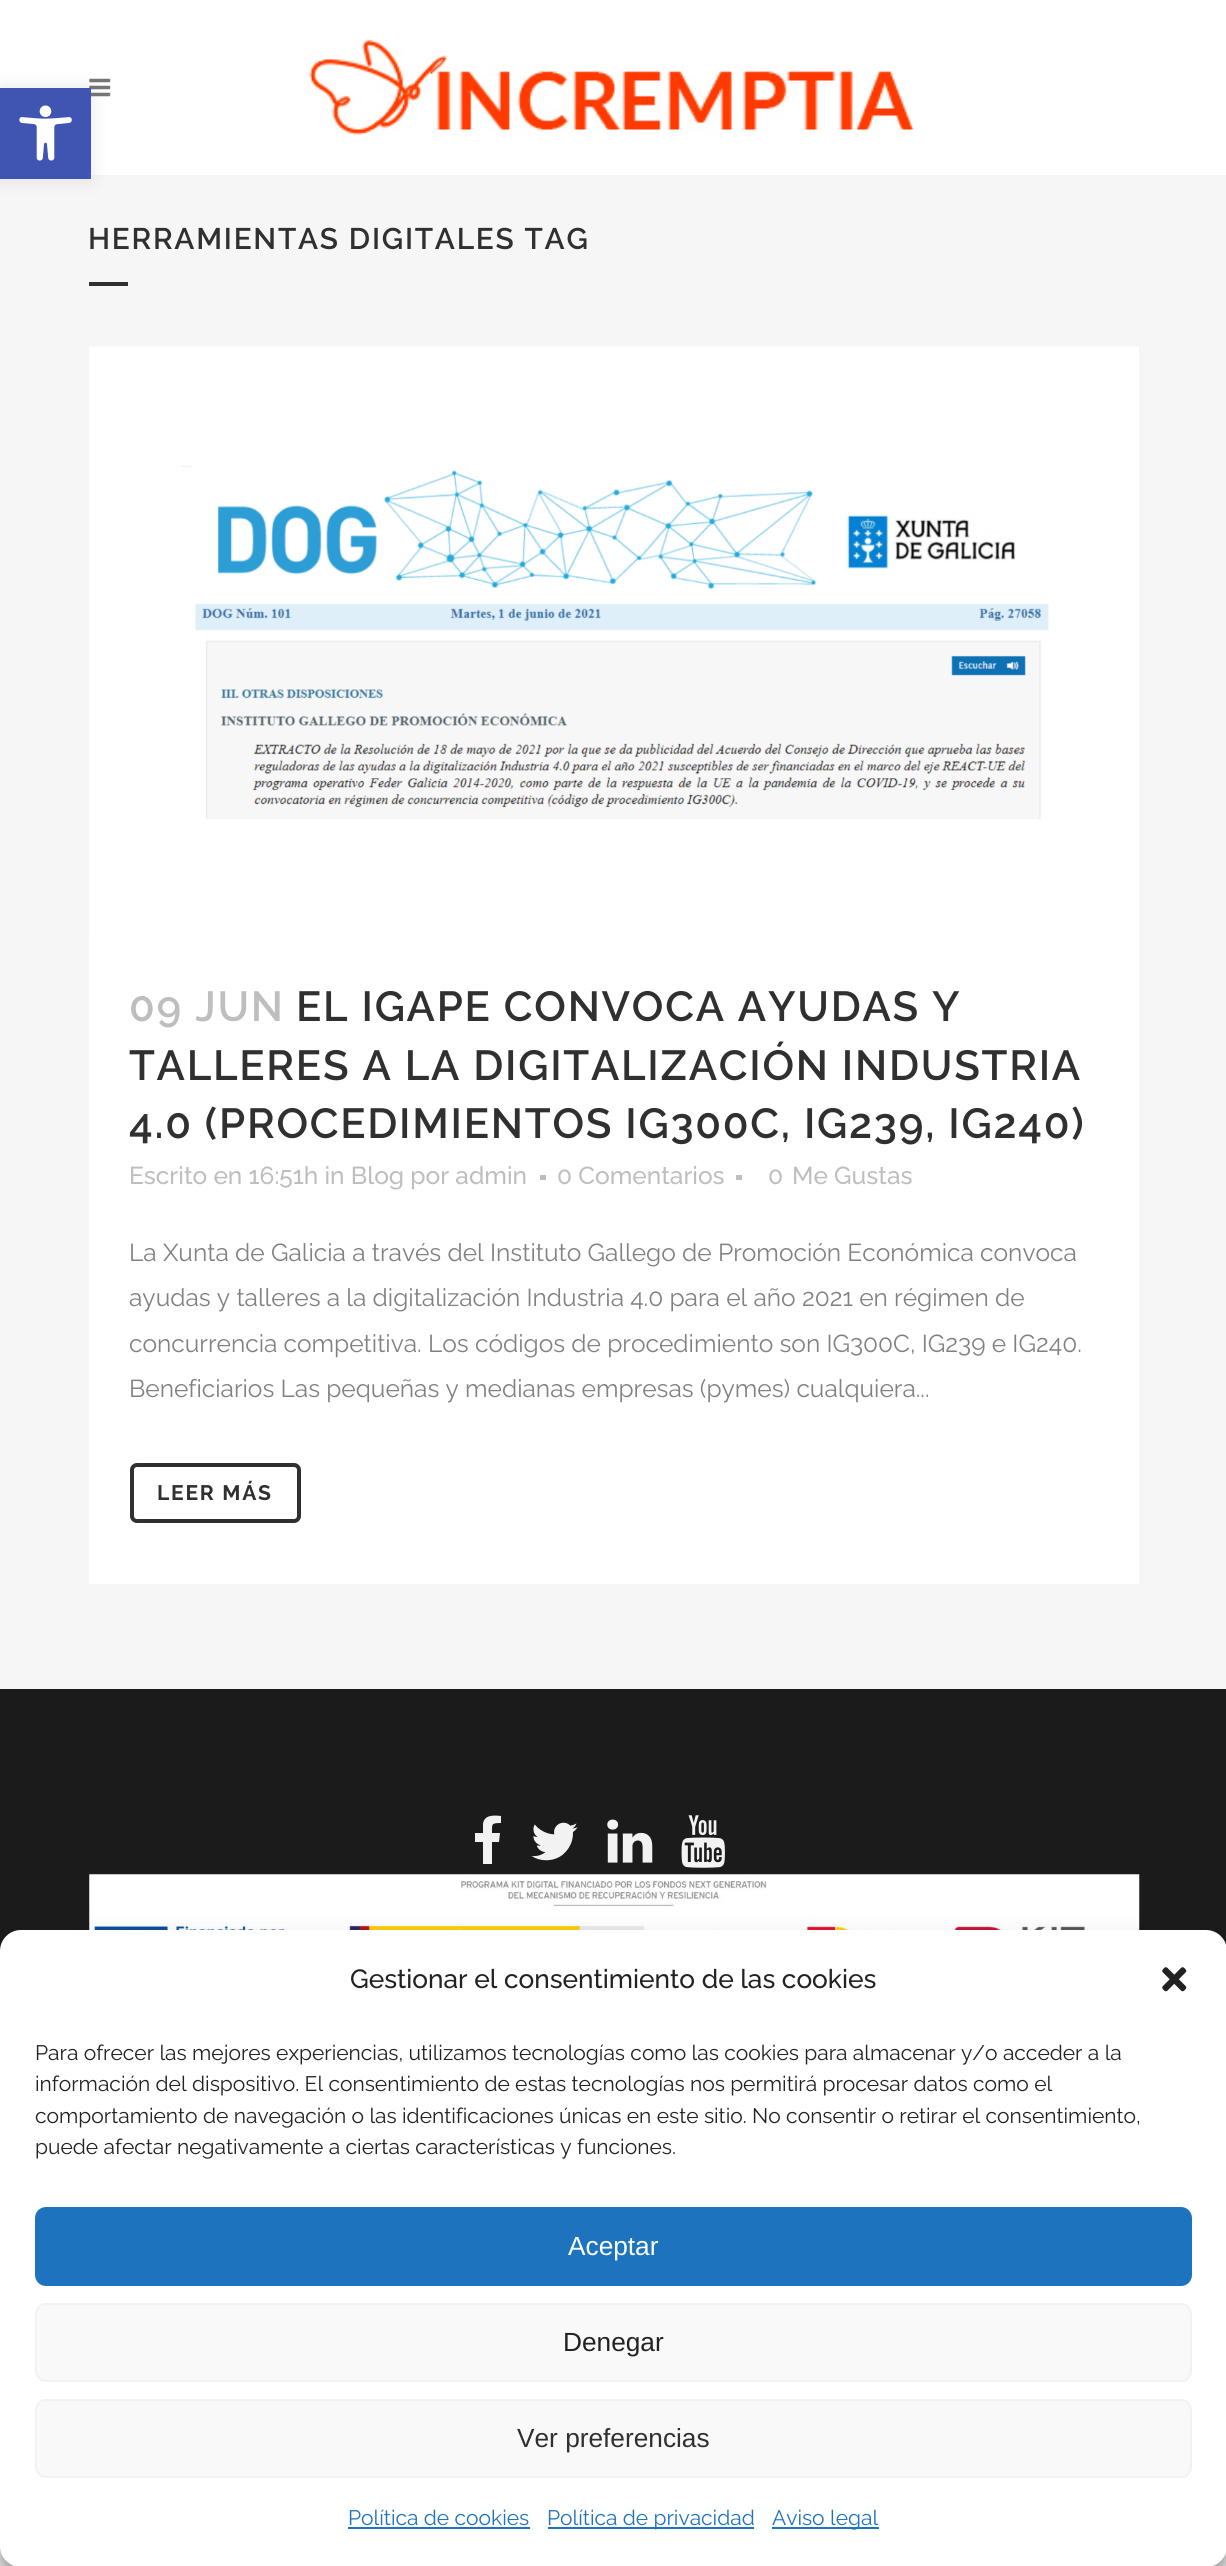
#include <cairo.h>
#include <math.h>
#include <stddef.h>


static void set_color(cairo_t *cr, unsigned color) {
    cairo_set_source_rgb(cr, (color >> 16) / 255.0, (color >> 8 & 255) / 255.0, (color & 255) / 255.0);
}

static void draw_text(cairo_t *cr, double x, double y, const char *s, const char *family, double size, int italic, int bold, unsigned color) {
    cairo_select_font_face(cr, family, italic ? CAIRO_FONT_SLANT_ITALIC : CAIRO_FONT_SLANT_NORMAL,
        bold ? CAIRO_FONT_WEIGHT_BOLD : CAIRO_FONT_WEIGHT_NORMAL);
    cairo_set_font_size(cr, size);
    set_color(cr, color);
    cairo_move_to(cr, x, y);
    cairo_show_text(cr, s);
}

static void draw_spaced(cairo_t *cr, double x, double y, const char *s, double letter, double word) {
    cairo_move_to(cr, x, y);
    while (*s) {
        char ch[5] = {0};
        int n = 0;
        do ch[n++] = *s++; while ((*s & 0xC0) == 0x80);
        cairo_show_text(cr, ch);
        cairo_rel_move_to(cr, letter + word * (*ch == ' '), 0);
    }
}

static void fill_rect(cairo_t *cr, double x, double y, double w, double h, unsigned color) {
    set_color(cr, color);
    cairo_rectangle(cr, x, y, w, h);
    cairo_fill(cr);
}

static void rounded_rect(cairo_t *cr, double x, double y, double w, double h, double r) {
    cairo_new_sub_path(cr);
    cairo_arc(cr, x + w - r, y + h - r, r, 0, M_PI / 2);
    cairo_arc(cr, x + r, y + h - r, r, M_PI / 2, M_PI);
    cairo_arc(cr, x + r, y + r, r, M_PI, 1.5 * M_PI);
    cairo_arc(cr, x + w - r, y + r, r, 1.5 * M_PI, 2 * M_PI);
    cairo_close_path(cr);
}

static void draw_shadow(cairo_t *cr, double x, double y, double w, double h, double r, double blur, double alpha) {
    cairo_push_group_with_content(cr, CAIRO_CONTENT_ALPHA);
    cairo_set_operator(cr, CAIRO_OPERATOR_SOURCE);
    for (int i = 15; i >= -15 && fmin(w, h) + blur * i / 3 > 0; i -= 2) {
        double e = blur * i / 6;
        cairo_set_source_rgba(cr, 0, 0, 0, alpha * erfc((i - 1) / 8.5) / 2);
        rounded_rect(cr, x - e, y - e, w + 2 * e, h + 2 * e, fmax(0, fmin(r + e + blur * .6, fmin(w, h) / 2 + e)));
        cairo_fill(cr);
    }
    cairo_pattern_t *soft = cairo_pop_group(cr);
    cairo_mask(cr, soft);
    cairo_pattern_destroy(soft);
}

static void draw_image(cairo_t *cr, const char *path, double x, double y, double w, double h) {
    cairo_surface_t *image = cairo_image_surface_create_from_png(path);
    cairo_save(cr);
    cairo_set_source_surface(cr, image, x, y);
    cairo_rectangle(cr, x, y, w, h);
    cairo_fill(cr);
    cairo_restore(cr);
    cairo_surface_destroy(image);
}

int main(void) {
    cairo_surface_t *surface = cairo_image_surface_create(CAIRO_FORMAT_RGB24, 1226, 2566);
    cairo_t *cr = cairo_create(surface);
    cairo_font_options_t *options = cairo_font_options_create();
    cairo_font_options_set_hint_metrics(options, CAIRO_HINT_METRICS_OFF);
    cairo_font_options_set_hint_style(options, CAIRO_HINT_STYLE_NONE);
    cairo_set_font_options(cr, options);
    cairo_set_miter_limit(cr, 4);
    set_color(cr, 0xF6F6F6);
    cairo_paint(cr);
    fill_rect(cr, 0, 0, 1226, 175, 0xFFFFFF);
    draw_image(cr, "assets/img2.png", 89, 78, 22, 19);
    set_color(cr, 0x000000);
    draw_shadow(cr, 0, 88, 91, 91, 0, 9, 0.1);
    fill_rect(cr, 0, 88, 91, 91, 0x4054B2);
    draw_image(cr, "assets/img1.png", 19, 105, 53, 56);
    draw_image(cr, "assets/img3.png", 309, 39, 605, 97);
    cairo_select_font_face(cr, "Raleway SemiBold", CAIRO_FONT_SLANT_NORMAL, CAIRO_FONT_WEIGHT_NORMAL);
    cairo_set_font_size(cr, 29.75);
    set_color(cr, 0x303030);
    draw_spaced(cr, 88, 249, "HERRAMIENTAS DIGITALES TAG", 1.75, 0);
    fill_rect(cr, 89, 282, 39, 4, 0x303030);
    draw_image(cr, "assets/img4.png", 89, 346, 1050, 592);
    fill_rect(cr, 89, 938, 1050, 646, 0xFFFFFF);
    cairo_set_font_size(cr, 42);
    set_color(cr, 0xBEBEBE);
    draw_spaced(cr, 129, 1021, "09 JUN", 1.75, 0);
    set_color(cr, 0x303030);
    draw_spaced(cr, 296, 1021, "EL IGAPE CONVOCA AYUDAS Y", 1.75, 0);
    draw_spaced(cr, 129, 1080, "TALLERES A LA DIGITALIZACIÓN INDUSTRIA", 1.75, 0);
    draw_spaced(cr, 129, 1138, "4.0 (PROCEDIMIENTOS IG300C, IG239, IG240)", 1.75, 0);
    draw_text(cr, 129, 1184, "Escrito en 16:51h in Blog por admin", "Raleway Medium", 24.5, 0, 0, 0xBEBEBE);
    fill_rect(cr, 540, 1175, 6, 5, 0xBEBEBE);
    draw_text(cr, 557, 1184, "0 Comentarios", "Raleway Medium", 24.5, 0, 0, 0xBEBEBE);
    fill_rect(cr, 736, 1175, 6, 5, 0xBEBEBE);
    draw_text(cr, 768, 1184, "0", "Raleway Medium", 24.5, 0, 0, 0xBEBEBE);
    draw_text(cr, 792, 1184, "Me Gustas", "Raleway Medium", 24.5, 0, 0, 0xBEBEBE);
    draw_text(cr, 129, 1261, "La Xunta de Galicia a través del Instituto Gallego de Promoción Económica convoca", "Raleway", 24.5, 0, 0, 0x818181);
    draw_text(cr, 129, 1306, "ayudas y talleres a la digitalización Industria 4.0 para el año 2021 en régimen de", "Raleway", 24.5, 0, 0, 0x818181);
    draw_text(cr, 129, 1352, "concurrencia competitiva. Los códigos de procedimiento son IG300C, IG239 e IG240.", "Raleway", 24.5, 0, 0, 0x818181);
    draw_text(cr, 129, 1397, "Beneficiarios Las pequeñas y medianas empresas (pymes) cualquiera...", "Raleway", 24.5, 0, 0, 0x818181);
    rounded_rect(cr, 132, 1465, 167, 56, 5);
    set_color(cr, 0x303030);
    cairo_set_line_width(cr, 4);
    cairo_stroke(cr);
    cairo_select_font_face(cr, "Raleway", CAIRO_FONT_SLANT_NORMAL, CAIRO_FONT_WEIGHT_BOLD);
    cairo_set_font_size(cr, 21);
    draw_spaced(cr, 157, 1500, "LEER MÁS", 1.75, 0);
    fill_rect(cr, 0, 1689, 1226, 262, 0x1B1B1B);
    set_color(cr, 0xF2F2F2);
    cairo_new_path(cr);
    cairo_move_to(cr, 501, 1816);
    cairo_line_to(cr, 501, 1823);
    cairo_curve_to(cr, 491, 1823, 492, 1824, 492, 1833);
    cairo_line_to(cr, 500, 1833);
    cairo_line_to(cr, 499, 1842);
    cairo_line_to(cr, 492, 1842);
    cairo_line_to(cr, 492, 1864);
    cairo_line_to(cr, 483, 1864);
    cairo_line_to(cr, 483, 1842);
    cairo_line_to(cr, 475, 1842);
    cairo_line_to(cr, 475, 1833);
    cairo_line_to(cr, 483, 1833);
    cairo_line_to(cr, 483, 1824);
    cairo_curve_to(cr, 484, 1815, 493, 1815, 501, 1816);
    cairo_close_path(cr);
    cairo_fill(cr);
    draw_image(cr, "assets/img5.png", 531, 1822, 47, 39);
    draw_image(cr, "assets/img6.png", 607, 1819, 46, 44);
    draw_image(cr, "assets/img7.png", 681, 1815, 44, 53);
    draw_image(cr, "assets/img8.png", 89, 1874, 1051, 56);
    set_color(cr, 0x000000);
    draw_shadow(cr, 0, 1941, 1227, 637, 21, 5, 0.23);
    draw_shadow(cr, 0, 1948, 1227, 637, 21, 17.5, 0.19);
    set_color(cr, 0xFFFFFF);
    rounded_rect(cr, 0, 1930, 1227, 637, 21);
    cairo_fill(cr);
    draw_text(cr, 350, 1988, "Gestionar el consentimiento de las cookies", "Raleway Medium", 26.25, 0, 0, 0x222222);
    draw_image(cr, "assets/img9.png", 1162, 1967, 25, 25);
    draw_text(cr, 35, 2060, "Para ofrecer las mejores experiencias, utilizamos tecnologías como las cookies para almacenar y/o acceder a la", "Raleway", 21, 0, 0, 0x222222);
    draw_text(cr, 35, 2091, "información del dispositivo. El consentimiento de estas tecnologías nos permitirá procesar datos como el", "Raleway", 21, 0, 0, 0x222222);
    draw_text(cr, 35, 2123, "comportamiento de navegación o las identificaciones únicas en este sitio. No consentir o retirar el consentimiento,", "Raleway", 21, 0, 0, 0x222222);
    draw_text(cr, 35, 2154, "puede afectar negativamente a ciertas características y funciones.", "Raleway", 21, 0, 0, 0x222222);
    set_color(cr, 0x1E73BE);
    rounded_rect(cr, 36, 2208, 1155, 77, 10);
    cairo_fill_preserve(cr);
    cairo_set_line_width(cr, 2);
    cairo_stroke(cr);
    draw_text(cr, 568, 2255, "Aceptar", "Liberation Sans", 26.25, 0, 0, 0xFFFFFF);
    set_color(cr, 0xF9F9F9);
    rounded_rect(cr, 36, 2304, 1155, 77, 10);
    cairo_fill_preserve(cr);
    set_color(cr, 0xF2F2F2);
    cairo_stroke(cr);
    draw_text(cr, 563, 2351, "Denegar", "Liberation Sans", 26.25, 0, 0, 0x222222);
    set_color(cr, 0xF9F9F9);
    rounded_rect(cr, 36, 2400, 1155, 77, 10);
    cairo_fill_preserve(cr);
    set_color(cr, 0xF2F2F2);
    cairo_stroke(cr);
    draw_text(cr, 517, 2447, "Ver preferencias", "Liberation Sans", 26.25, 0, 0, 0x303030);
    draw_text(cr, 348, 2525, "Política de cookies", "Raleway", 21, 0, 0, 0x1E73BE);
    fill_rect(cr, 348, 2527, 182, 2, 0x1E73BE);
    fill_rect(cr, 548, 2527, 206, 2, 0x1E73BE);
    draw_text(cr, 547, 2525, "Política de privacidad", "Raleway", 21, 0, 0, 0x1E73BE);
    fill_rect(cr, 772, 2527, 107, 2, 0x1E73BE);
    draw_text(cr, 772, 2525, "Aviso legal", "Raleway", 21, 0, 0, 0x1E73BE);
    cairo_surface_write_to_png(surface, "output.png");
    cairo_font_options_destroy(options);
    cairo_destroy(cr);
    cairo_surface_destroy(surface);
    return 0;
}
